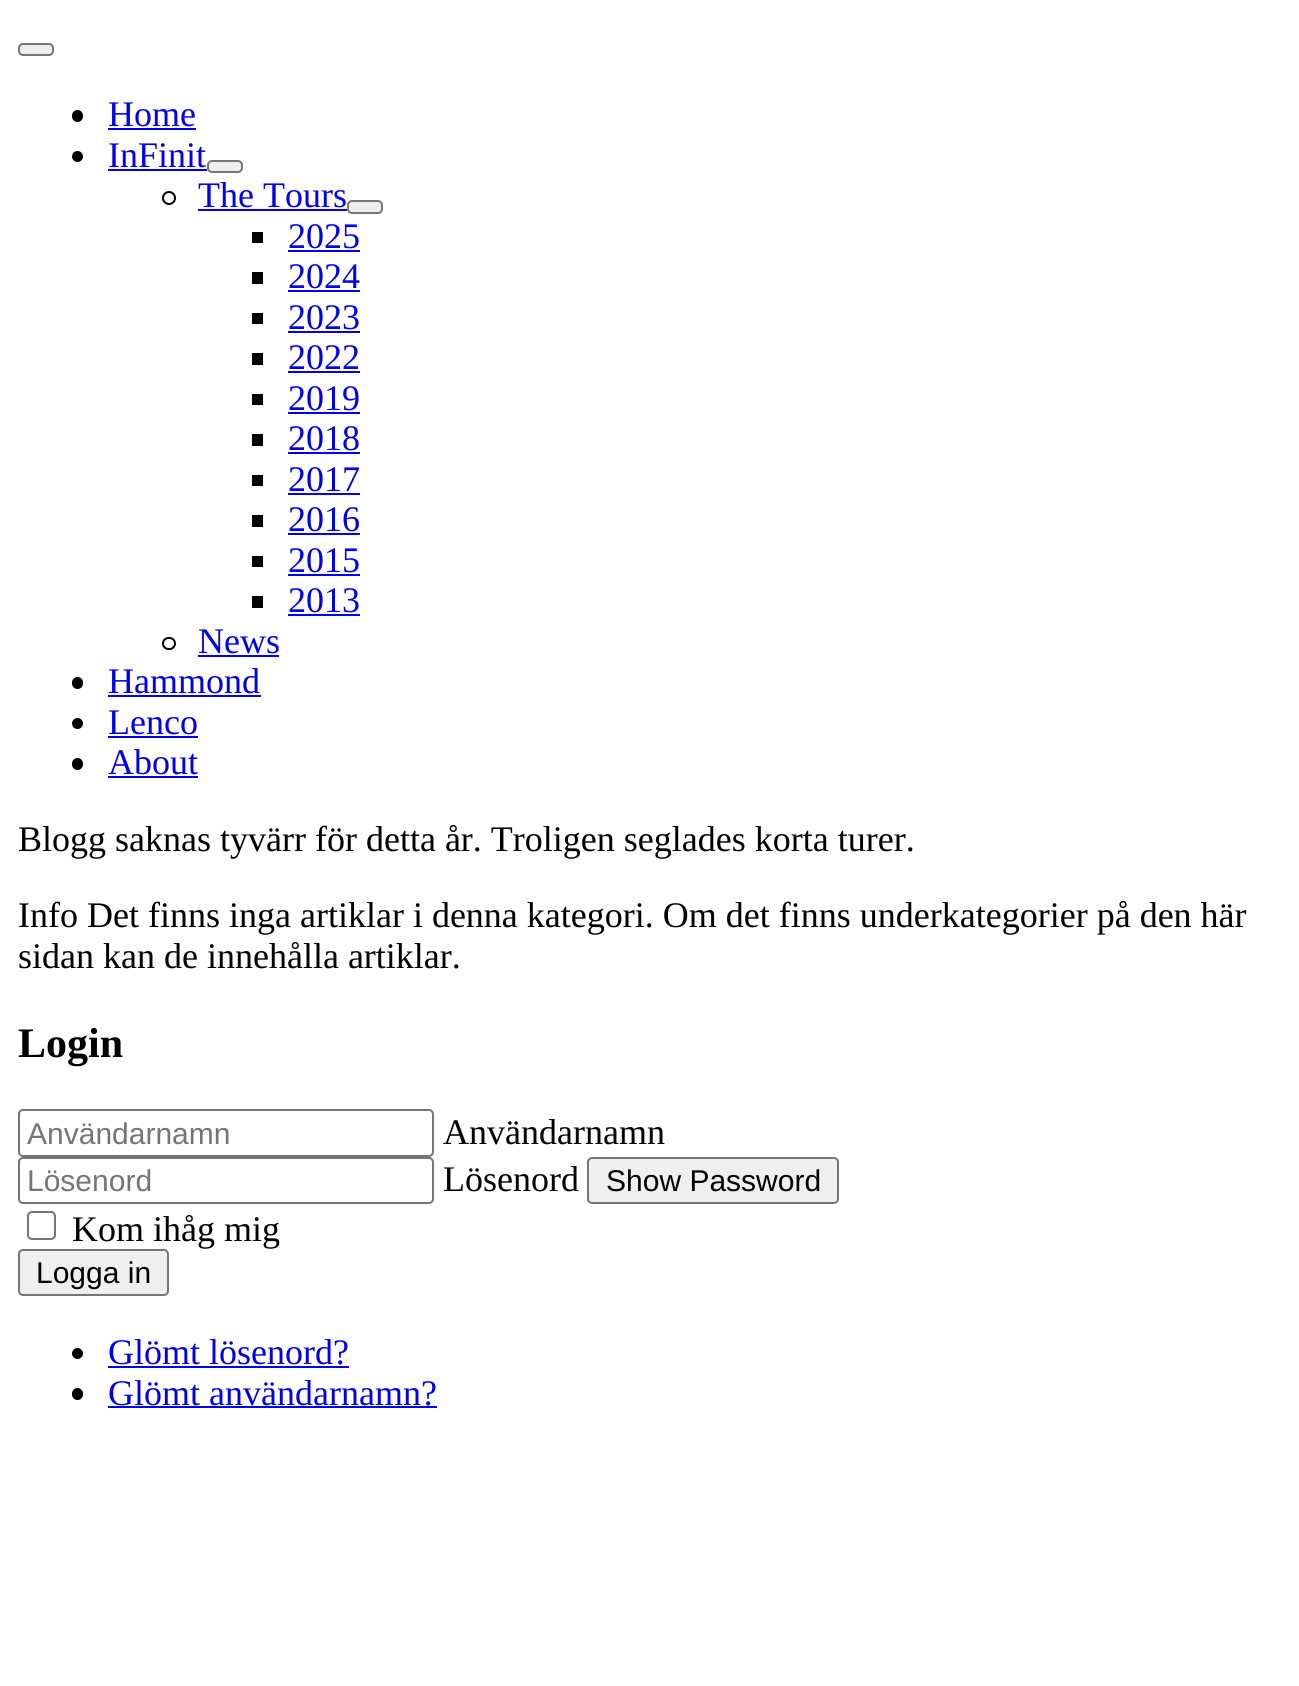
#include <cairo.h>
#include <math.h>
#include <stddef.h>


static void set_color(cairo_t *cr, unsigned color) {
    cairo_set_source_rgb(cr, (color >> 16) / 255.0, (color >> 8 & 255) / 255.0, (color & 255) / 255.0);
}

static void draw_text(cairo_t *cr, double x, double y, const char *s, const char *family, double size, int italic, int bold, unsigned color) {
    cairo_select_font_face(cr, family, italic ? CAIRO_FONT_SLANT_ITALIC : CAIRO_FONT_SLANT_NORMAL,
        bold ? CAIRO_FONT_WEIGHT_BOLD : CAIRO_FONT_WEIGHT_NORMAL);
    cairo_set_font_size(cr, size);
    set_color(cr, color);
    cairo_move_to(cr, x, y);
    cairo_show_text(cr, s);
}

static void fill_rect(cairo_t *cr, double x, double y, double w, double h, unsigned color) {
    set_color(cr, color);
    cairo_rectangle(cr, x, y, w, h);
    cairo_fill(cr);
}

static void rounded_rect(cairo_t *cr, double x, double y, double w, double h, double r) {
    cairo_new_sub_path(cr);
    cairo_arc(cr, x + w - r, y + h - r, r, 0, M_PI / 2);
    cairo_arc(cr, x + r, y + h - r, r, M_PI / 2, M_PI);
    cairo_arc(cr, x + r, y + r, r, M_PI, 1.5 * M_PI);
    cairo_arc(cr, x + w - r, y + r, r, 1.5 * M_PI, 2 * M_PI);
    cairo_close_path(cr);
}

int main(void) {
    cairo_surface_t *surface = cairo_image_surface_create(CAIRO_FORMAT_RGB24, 1299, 1686);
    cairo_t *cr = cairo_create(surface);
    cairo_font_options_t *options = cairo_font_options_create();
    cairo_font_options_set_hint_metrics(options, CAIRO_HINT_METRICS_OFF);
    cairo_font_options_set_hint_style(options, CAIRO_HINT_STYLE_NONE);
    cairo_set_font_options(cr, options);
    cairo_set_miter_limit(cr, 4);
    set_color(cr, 0xFFFFFF);
    cairo_paint(cr);
    set_color(cr, 0xEFEFEF);
    rounded_rect(cr, 19, 44, 34, 11, 4);
    cairo_fill_preserve(cr);
    set_color(cr, 0x767676);
    cairo_stroke(cr);
    set_color(cr, 0x000000);
    rounded_rect(cr, 72, 110, 11, 12, 5.5);
    cairo_fill(cr);
    draw_text(cr, 108, 126, "Home", "Liberation Serif", 36, 0, 0, 0x0000EE);
    fill_rect(cr, 108, 128, 88, 2, 0x0000EE);
    set_color(cr, 0x000000);
    cairo_new_path(cr);
    cairo_arc(cr, 77.5, 156.5, 5.5, 0, 2 * M_PI);
    cairo_fill(cr);
    draw_text(cr, 108, 167, "InFinit", "Liberation Serif", 36, 0, 0, 0x0000EE);
    fill_rect(cr, 108, 169, 99, 2, 0x0000EE);
    set_color(cr, 0xEFEFEF);
    rounded_rect(cr, 208, 161, 34, 11, 4);
    cairo_fill_preserve(cr);
    set_color(cr, 0x767676);
    cairo_stroke(cr);
    cairo_arc(cr, 169, 198, 6, 0, 2 * M_PI);
    set_color(cr, 0x000000);
    cairo_stroke(cr);
    draw_text(cr, 198, 207, "The Tours", "Liberation Serif", 36, 0, 0, 0x0000EE);
    fill_rect(cr, 198, 209, 149, 2, 0x0000EE);
    set_color(cr, 0xEFEFEF);
    rounded_rect(cr, 348, 201, 34, 12, 4);
    cairo_fill_preserve(cr);
    set_color(cr, 0x767676);
    cairo_stroke(cr);
    fill_rect(cr, 252, 232, 11, 11, 0x000000);
    draw_text(cr, 288, 248, "2025", "Liberation Serif", 36, 0, 0, 0x0000EE);
    fill_rect(cr, 288, 250, 72, 2, 0x0000EE);
    fill_rect(cr, 252, 272, 11, 12, 0x000000);
    draw_text(cr, 288, 288, "2024", "Liberation Serif", 36, 0, 0, 0x0000EE);
    fill_rect(cr, 288, 290, 72, 2, 0x0000EE);
    fill_rect(cr, 252, 313, 11, 11, 0x000000);
    draw_text(cr, 288, 329, "2023", "Liberation Serif", 36, 0, 0, 0x0000EE);
    fill_rect(cr, 288, 331, 72, 2, 0x0000EE);
    fill_rect(cr, 252, 353, 11, 12, 0x000000);
    draw_text(cr, 288, 369, "2022", "Liberation Serif", 36, 0, 0, 0x0000EE);
    fill_rect(cr, 288, 371, 72, 2, 0x0000EE);
    fill_rect(cr, 252, 394, 11, 11, 0x000000);
    draw_text(cr, 288, 410, "2019", "Liberation Serif", 36, 0, 0, 0x0000EE);
    fill_rect(cr, 288, 412, 72, 2, 0x0000EE);
    fill_rect(cr, 252, 434, 11, 12, 0x000000);
    draw_text(cr, 288, 450, "2018", "Liberation Serif", 36, 0, 0, 0x0000EE);
    fill_rect(cr, 288, 452, 72, 2, 0x0000EE);
    fill_rect(cr, 252, 475, 11, 11, 0x000000);
    draw_text(cr, 288, 491, "2017", "Liberation Serif", 36, 0, 0, 0x0000EE);
    fill_rect(cr, 288, 493, 72, 2, 0x0000EE);
    fill_rect(cr, 252, 515, 11, 12, 0x000000);
    draw_text(cr, 288, 531, "2016", "Liberation Serif", 36, 0, 0, 0x0000EE);
    fill_rect(cr, 288, 533, 72, 2, 0x0000EE);
    fill_rect(cr, 252, 556, 11, 11, 0x000000);
    draw_text(cr, 288, 572, "2015", "Liberation Serif", 36, 0, 0, 0x0000EE);
    fill_rect(cr, 288, 574, 72, 2, 0x0000EE);
    fill_rect(cr, 252, 596, 11, 12, 0x000000);
    draw_text(cr, 288, 612, "2013", "Liberation Serif", 36, 0, 0, 0x0000EE);
    fill_rect(cr, 288, 614, 72, 2, 0x0000EE);
    rounded_rect(cr, 163, 638, 12, 11, 5.5);
    set_color(cr, 0x000000);
    cairo_stroke(cr);
    draw_text(cr, 198, 653, "News", "Liberation Serif", 36, 0, 0, 0x0000EE);
    fill_rect(cr, 198, 655, 81, 2, 0x0000EE);
    set_color(cr, 0x000000);
    rounded_rect(cr, 72, 677, 11, 12, 5.5);
    cairo_fill(cr);
    draw_text(cr, 108, 693, "Hammond", "Liberation Serif", 36, 0, 0, 0x0000EE);
    fill_rect(cr, 108, 695, 153, 2, 0x0000EE);
    set_color(cr, 0x000000);
    cairo_new_path(cr);
    cairo_arc(cr, 77.5, 723.5, 5.5, 0, 2 * M_PI);
    cairo_fill(cr);
    draw_text(cr, 108, 734, "Lenco", "Liberation Serif", 36, 0, 0, 0x0000EE);
    fill_rect(cr, 108, 736, 90, 2, 0x0000EE);
    set_color(cr, 0x000000);
    rounded_rect(cr, 72, 758, 11, 12, 5.5);
    cairo_fill(cr);
    draw_text(cr, 108, 774, "About", "Liberation Serif", 36, 0, 0, 0x0000EE);
    fill_rect(cr, 108, 776, 90, 2, 0x0000EE);
    draw_text(cr, 18, 851, "Blogg saknas tyvärr för detta år. Troligen seglades korta turer.", "Liberation Serif", 36, 0, 0, 0x000000);
    draw_text(cr, 18, 927, "Info Det finns inga artiklar i denna kategori. Om det finns underkategorier på den här", "Liberation Serif", 36, 0, 0, 0x000000);
    draw_text(cr, 18, 968, "sidan kan de innehålla artiklar.", "Liberation Serif", 36, 0, 0, 0x000000);
    draw_text(cr, 18, 1057, "Login", "Liberation Serif", 42, 0, 1, 0x000000);
    rounded_rect(cr, 19, 1110, 414, 46, 4);
    set_color(cr, 0x767676);
    cairo_stroke(cr);
    draw_text(cr, 27, 1144, "Användarnamn", "Liberation Sans", 30, 0, 0, 0x757575);
    draw_text(cr, 443, 1144, "Användarnamn", "Liberation Serif", 36, 0, 0, 0x000000);
    rounded_rect(cr, 19, 1158, 414, 45, 4);
    set_color(cr, 0x767676);
    cairo_stroke(cr);
    draw_text(cr, 27, 1191, "Lösenord", "Liberation Sans", 30, 0, 0, 0x757575);
    draw_text(cr, 443, 1191, "Lösenord", "Liberation Serif", 36, 0, 0, 0x000000);
    set_color(cr, 0xEFEFEF);
    rounded_rect(cr, 588, 1158, 250, 45, 4);
    cairo_fill_preserve(cr);
    set_color(cr, 0x767676);
    cairo_stroke(cr);
    draw_text(cr, 606, 1191, "Show Password", "Liberation Sans", 30, 0, 0, 0x000000);
    rounded_rect(cr, 28, 1212, 27, 27, 4);
    set_color(cr, 0x767676);
    cairo_stroke(cr);
    draw_text(cr, 72, 1241, "Kom ihåg mig", "Liberation Serif", 36, 0, 0, 0x000000);
    set_color(cr, 0xEFEFEF);
    rounded_rect(cr, 19, 1250, 149, 45, 4);
    cairo_fill_preserve(cr);
    set_color(cr, 0x767676);
    cairo_stroke(cr);
    draw_text(cr, 36, 1283, "Logga in", "Liberation Sans", 30, 0, 0, 0x000000);
    cairo_new_path(cr);
    cairo_arc(cr, 77.5, 1353.5, 5.5, 0, 2 * M_PI);
    cairo_fill(cr);
    draw_text(cr, 108, 1364, "Glömt lösenord?", "Liberation Serif", 36, 0, 0, 0x0000EE);
    fill_rect(cr, 108, 1366, 241, 2, 0x0000EE);
    set_color(cr, 0x000000);
    rounded_rect(cr, 72, 1388, 11, 12, 5.5);
    cairo_fill(cr);
    draw_text(cr, 108, 1405, "Glömt användarnamn?", "Liberation Serif", 36, 0, 0, 0x0000EE);
    fill_rect(cr, 108, 1406, 329, 2, 0x0000EE);
    cairo_surface_write_to_png(surface, "output.png");
    cairo_font_options_destroy(options);
    cairo_destroy(cr);
    cairo_surface_destroy(surface);
    return 0;
}
